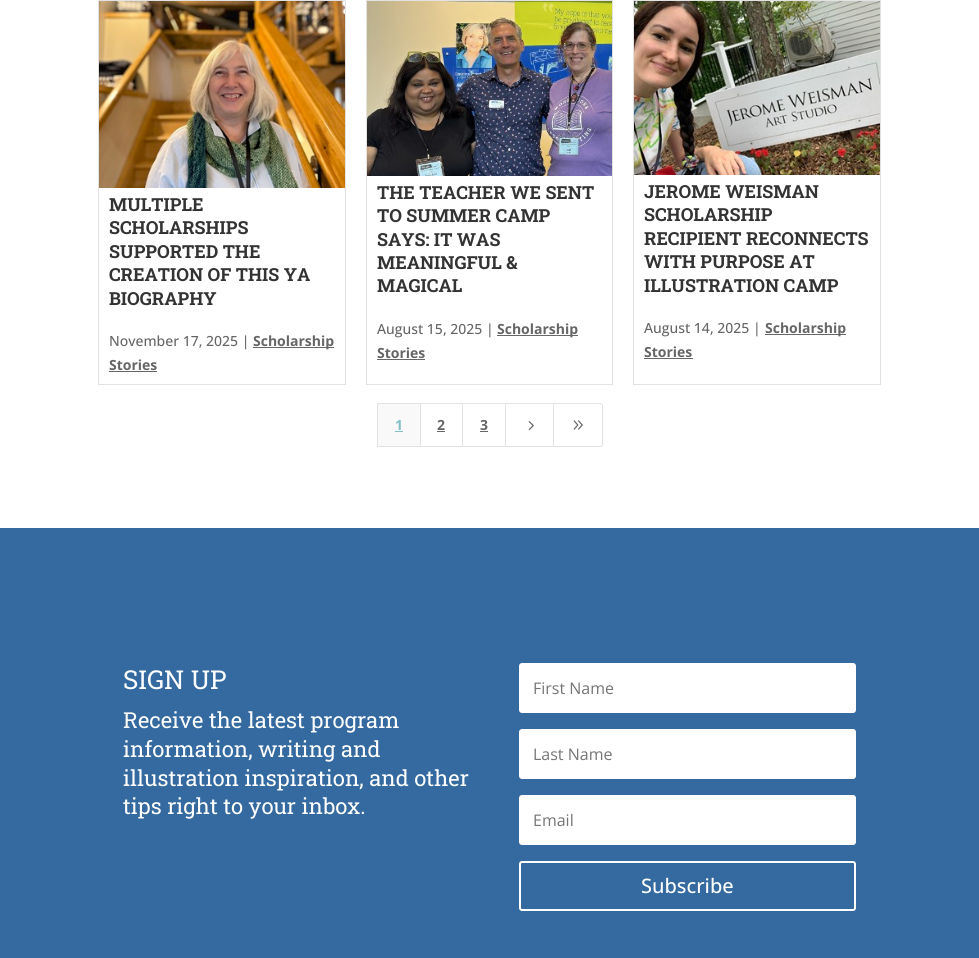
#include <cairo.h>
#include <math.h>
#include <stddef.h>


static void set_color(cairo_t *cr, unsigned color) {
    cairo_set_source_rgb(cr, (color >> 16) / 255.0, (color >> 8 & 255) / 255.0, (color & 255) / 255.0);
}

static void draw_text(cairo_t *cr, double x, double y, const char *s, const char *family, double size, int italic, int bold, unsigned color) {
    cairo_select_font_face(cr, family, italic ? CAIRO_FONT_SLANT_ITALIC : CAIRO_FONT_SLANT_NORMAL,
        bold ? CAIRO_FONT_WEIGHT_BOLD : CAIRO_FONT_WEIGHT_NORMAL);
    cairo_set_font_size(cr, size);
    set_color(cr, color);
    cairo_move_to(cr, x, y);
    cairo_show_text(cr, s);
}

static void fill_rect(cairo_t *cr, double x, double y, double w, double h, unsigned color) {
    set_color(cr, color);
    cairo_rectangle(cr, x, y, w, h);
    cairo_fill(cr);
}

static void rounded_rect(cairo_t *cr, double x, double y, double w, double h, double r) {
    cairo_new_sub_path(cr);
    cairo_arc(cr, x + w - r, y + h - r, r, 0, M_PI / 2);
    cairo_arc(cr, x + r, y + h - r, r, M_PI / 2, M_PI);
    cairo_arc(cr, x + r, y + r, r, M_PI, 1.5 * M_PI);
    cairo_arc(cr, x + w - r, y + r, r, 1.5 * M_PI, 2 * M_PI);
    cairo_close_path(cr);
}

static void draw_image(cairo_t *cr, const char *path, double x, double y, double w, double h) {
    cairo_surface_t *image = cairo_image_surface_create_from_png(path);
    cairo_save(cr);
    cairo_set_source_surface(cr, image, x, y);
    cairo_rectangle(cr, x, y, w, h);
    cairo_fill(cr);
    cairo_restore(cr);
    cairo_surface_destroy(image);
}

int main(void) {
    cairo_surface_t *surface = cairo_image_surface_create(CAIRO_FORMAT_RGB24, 979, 958);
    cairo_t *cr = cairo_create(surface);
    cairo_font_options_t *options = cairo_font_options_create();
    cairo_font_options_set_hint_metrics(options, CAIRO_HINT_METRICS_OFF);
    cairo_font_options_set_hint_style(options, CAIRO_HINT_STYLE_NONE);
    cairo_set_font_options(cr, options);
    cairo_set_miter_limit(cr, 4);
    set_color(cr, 0x346A9F);
    cairo_paint(cr);
    fill_rect(cr, 0, 0, 979, 528, 0xFFFFFF);
    cairo_rectangle(cr, 98.5, 0.5, 247, 384);
    set_color(cr, 0xE2E2E2);
    cairo_set_line_width(cr, 1);
    cairo_stroke(cr);
    draw_image(cr, "assets/img1.png", 99, 1, 246, 187);
    draw_text(cr, 109, 211, "MULTIPLE", "Roboto Slab", 18, 0, 1, 0x333333);
    draw_text(cr, 109, 234, "SCHOLARSHIPS", "Roboto Slab", 18, 0, 1, 0x333333);
    draw_text(cr, 109, 258, "SUPPORTED THE", "Roboto Slab", 18, 0, 1, 0x333333);
    draw_text(cr, 109, 281, "CREATION OF THIS YA", "Roboto Slab", 18, 0, 1, 0x333333);
    draw_text(cr, 109, 305, "BIOGRAPHY", "Roboto Slab", 18, 0, 1, 0x333333);
    draw_text(cr, 109, 346, "November 17, 2025 |", "Open Sans Medium", 14, 0, 0, 0x666666);
    fill_rect(cr, 253, 347, 81, 1, 0x666666);
    draw_text(cr, 253, 346, "Scholarship", "Open Sans", 14, 0, 1, 0x666666);
    draw_text(cr, 109, 370, "Stories", "Open Sans", 14, 0, 1, 0x666666);
    fill_rect(cr, 109, 371, 48, 1, 0x666666);
    cairo_rectangle(cr, 366.5, 0.5, 246, 384);
    set_color(cr, 0xE2E2E2);
    cairo_stroke(cr);
    draw_image(cr, "assets/img2.png", 367, 1, 245, 175);
    draw_text(cr, 377, 199, "THE TEACHER WE SENT", "Roboto Slab", 18, 0, 1, 0x333333);
    draw_text(cr, 377, 222, "TO SUMMER CAMP", "Roboto Slab", 18, 0, 1, 0x333333);
    draw_text(cr, 377, 246, "SAYS: IT WAS", "Roboto Slab", 18, 0, 1, 0x333333);
    draw_text(cr, 377, 269, "MEANINGFUL &", "Roboto Slab", 18, 0, 1, 0x333333);
    draw_text(cr, 377, 292, "MAGICAL", "Roboto Slab", 18, 0, 1, 0x333333);
    draw_text(cr, 377, 334, "August 15, 2025 |", "Open Sans Medium", 14, 0, 0, 0x666666);
    fill_rect(cr, 497, 335, 81, 1, 0x666666);
    draw_text(cr, 497, 334, "Scholarship", "Open Sans", 14, 0, 1, 0x666666);
    draw_text(cr, 377, 358, "Stories", "Open Sans", 14, 0, 1, 0x666666);
    fill_rect(cr, 377, 359, 48, 1, 0x666666);
    cairo_rectangle(cr, 633.5, 0.5, 247, 384);
    set_color(cr, 0xE2E2E2);
    cairo_stroke(cr);
    draw_image(cr, "assets/img3.png", 634, 1, 246, 174);
    draw_text(cr, 644, 198, "JEROME WEISMAN", "Roboto Slab", 18, 0, 1, 0x333333);
    draw_text(cr, 644, 221, "SCHOLARSHIP", "Roboto Slab", 18, 0, 1, 0x333333);
    draw_text(cr, 644, 245, "RECIPIENT RECONNECTS", "Roboto Slab", 18, 0, 1, 0x333333);
    draw_text(cr, 644, 268, "WITH PURPOSE AT", "Roboto Slab", 18, 0, 1, 0x333333);
    draw_text(cr, 644, 292, "ILLUSTRATION CAMP", "Roboto Slab", 18, 0, 1, 0x333333);
    draw_text(cr, 644, 333, "August 14, 2025 |", "Open Sans Medium", 14, 0, 0, 0x666666);
    fill_rect(cr, 765, 334, 81, 1, 0x666666);
    draw_text(cr, 765, 333, "Scholarship", "Open Sans", 14, 0, 1, 0x666666);
    draw_text(cr, 644, 357, "Stories", "Open Sans", 14, 0, 1, 0x666666);
    fill_rect(cr, 644, 358, 49, 1, 0x666666);
    set_color(cr, 0xF9F9F9);
    cairo_rectangle(cr, 377.5, 403.5, 43, 43);
    cairo_fill_preserve(cr);
    set_color(cr, 0xE2E2E2);
    cairo_stroke(cr);
    draw_text(cr, 395, 430, "1", "Open Sans", 14, 0, 1, 0x82C0C7);
    fill_rect(cr, 395, 431, 8, 1, 0x82C0C7);
    cairo_rectangle(cr, 420.5, 403.5, 42, 43);
    set_color(cr, 0xE2E2E2);
    cairo_stroke(cr);
    draw_text(cr, 437, 430, "2", "Open Sans", 14, 0, 1, 0x666666);
    fill_rect(cr, 437, 431, 8, 1, 0x666666);
    cairo_rectangle(cr, 462.5, 403.5, 43, 43);
    set_color(cr, 0xE2E2E2);
    cairo_stroke(cr);
    draw_text(cr, 480, 430, "3", "Open Sans", 14, 0, 1, 0x666666);
    fill_rect(cr, 480, 431, 8, 1, 0x666666);
    cairo_rectangle(cr, 505.5, 403.5, 48, 43);
    set_color(cr, 0xE2E2E2);
    cairo_stroke(cr);
    draw_image(cr, "assets/img4.png", 528, 421, 6, 10);
    set_color(cr, 0xFFFFFF);
    cairo_new_path(cr);
    cairo_move_to(cr, 553.5, 403.5);
    cairo_line_to(cr, 600, 403.5);
    cairo_curve_to(cr, 601.5, 403.5, 602.5, 404.5, 602.5, 406);
    cairo_line_to(cr, 602.5, 444);
    cairo_curve_to(cr, 602.5, 445.5, 601.5, 446.5, 600, 446.5);
    cairo_line_to(cr, 553.5, 446.5);
    cairo_close_path(cr);
    cairo_fill_preserve(cr);
    set_color(cr, 0xE2E2E2);
    cairo_stroke(cr);
    draw_image(cr, "assets/img5.png", 573, 420, 10, 10);
    draw_text(cr, 123, 689, "SIGN UP", "Roboto Slab", 26, 0, 0, 0xFFFFFF);
    draw_text(cr, 123, 728, "Receive the latest program", "Roboto Slab", 22, 0, 0, 0xFFFFFF);
    draw_text(cr, 123, 757, "information, writing and", "Roboto Slab", 22, 0, 0, 0xFFFFFF);
    draw_text(cr, 123, 786, "illustration inspiration, and other", "Roboto Slab", 22, 0, 0, 0xFFFFFF);
    draw_text(cr, 123, 814, "tips right to your inbox.", "Roboto Slab", 22, 0, 0, 0xFFFFFF);
    rounded_rect(cr, 519, 663, 337, 50, 3);
    cairo_fill(cr);
    draw_text(cr, 533, 694, "First Name", "Open Sans", 16, 0, 0, 0x757575);
    set_color(cr, 0xFFFFFF);
    rounded_rect(cr, 519, 729, 337, 50, 3);
    cairo_fill(cr);
    draw_text(cr, 533, 760, "Last Name", "Open Sans", 16, 0, 0, 0x757575);
    set_color(cr, 0xFFFFFF);
    rounded_rect(cr, 519, 795, 337, 50, 3);
    cairo_fill(cr);
    draw_text(cr, 533, 826, "Email", "Open Sans", 16, 0, 0, 0x757575);
    rounded_rect(cr, 520, 862, 335, 48, 2);
    set_color(cr, 0xFFFFFF);
    cairo_set_line_width(cr, 2);
    cairo_stroke(cr);
    draw_text(cr, 641, 893, "Subscribe", "Open Sans Medium", 20, 0, 0, 0xFFFFFF);
    cairo_surface_write_to_png(surface, "output.png");
    cairo_font_options_destroy(options);
    cairo_destroy(cr);
    cairo_surface_destroy(surface);
    return 0;
}
